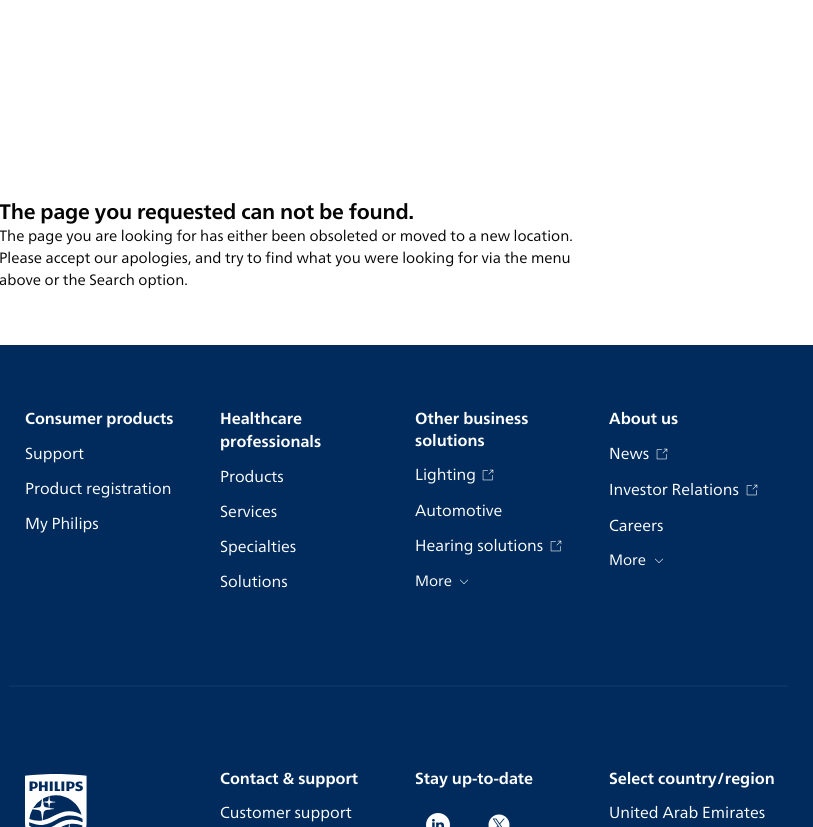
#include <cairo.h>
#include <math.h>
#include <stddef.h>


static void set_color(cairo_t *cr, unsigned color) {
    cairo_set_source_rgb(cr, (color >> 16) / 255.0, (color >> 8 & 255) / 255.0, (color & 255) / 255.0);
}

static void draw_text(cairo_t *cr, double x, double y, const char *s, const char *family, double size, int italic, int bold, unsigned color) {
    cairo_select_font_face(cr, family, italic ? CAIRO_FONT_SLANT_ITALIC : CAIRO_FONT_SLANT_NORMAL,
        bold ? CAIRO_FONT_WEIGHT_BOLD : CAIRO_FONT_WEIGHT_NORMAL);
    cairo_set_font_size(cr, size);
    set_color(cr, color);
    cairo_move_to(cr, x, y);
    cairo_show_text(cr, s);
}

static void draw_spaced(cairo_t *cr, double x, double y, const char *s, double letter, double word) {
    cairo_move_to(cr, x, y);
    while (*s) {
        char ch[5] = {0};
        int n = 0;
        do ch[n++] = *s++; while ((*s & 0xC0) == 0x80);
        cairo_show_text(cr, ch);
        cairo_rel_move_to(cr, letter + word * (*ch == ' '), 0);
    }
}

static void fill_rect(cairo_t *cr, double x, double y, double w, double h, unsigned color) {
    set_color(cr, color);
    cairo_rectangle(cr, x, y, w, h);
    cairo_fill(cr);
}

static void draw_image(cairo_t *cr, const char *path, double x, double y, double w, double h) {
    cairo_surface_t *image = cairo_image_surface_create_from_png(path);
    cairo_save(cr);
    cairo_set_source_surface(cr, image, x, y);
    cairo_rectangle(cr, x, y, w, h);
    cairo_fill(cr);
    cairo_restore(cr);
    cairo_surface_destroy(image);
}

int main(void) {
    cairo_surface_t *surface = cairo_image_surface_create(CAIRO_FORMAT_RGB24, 813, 827);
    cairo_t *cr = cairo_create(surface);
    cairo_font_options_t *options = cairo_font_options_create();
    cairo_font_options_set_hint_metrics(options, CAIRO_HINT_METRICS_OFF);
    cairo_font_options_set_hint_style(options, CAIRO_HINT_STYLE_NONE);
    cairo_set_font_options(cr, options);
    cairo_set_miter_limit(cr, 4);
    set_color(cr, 0xFFFFFF);
    cairo_paint(cr);
    cairo_select_font_face(cr, "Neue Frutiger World", CAIRO_FONT_SLANT_NORMAL, CAIRO_FONT_WEIGHT_BOLD);
    cairo_set_font_size(cr, 21);
    set_color(cr, 0x050505);
    draw_spaced(cr, -1, 219, "The page you requested can not be found.", -0.2, 0);
    draw_text(cr, -1, 241, "The page you are looking for has either been obsoleted or moved to a new location.", "Neue Frutiger World", 15, 0, 0, 0x050505);
    draw_text(cr, -1, 263, "Please accept our apologies, and try to find what you were looking for via the menu", "Neue Frutiger World", 15, 0, 0, 0x050505);
    draw_text(cr, -1, 285, "above or the Search option.", "Neue Frutiger World", 15, 0, 0, 0x050505);
    fill_rect(cr, 0, 345, 813, 482, 0x002B5C);
    draw_text(cr, 25, 424, "Consumer products", "Neue Frutiger World", 16, 0, 1, 0xFFFFFF);
    draw_text(cr, 25, 459, "Support", "Neue Frutiger World", 16, 0, 0, 0xFFFFFF);
    draw_text(cr, 25, 494, "Product registration", "Neue Frutiger World", 16, 0, 0, 0xFFFFFF);
    draw_text(cr, 25, 529, "My Philips", "Neue Frutiger World", 16, 0, 0, 0xFFFFFF);
    draw_text(cr, 220, 424, "Healthcare", "Neue Frutiger World", 16, 0, 1, 0xFFFFFF);
    draw_text(cr, 220, 447, "professionals", "Neue Frutiger World", 16, 0, 1, 0xFFFFFF);
    draw_text(cr, 220, 482, "Products", "Neue Frutiger World", 16, 0, 0, 0xFFFFFF);
    draw_text(cr, 220, 517, "Services", "Neue Frutiger World", 16, 0, 0, 0xFFFFFF);
    draw_text(cr, 220, 552, "Specialties", "Neue Frutiger World", 16, 0, 0, 0xFFFFFF);
    draw_text(cr, 220, 587, "Solutions", "Neue Frutiger World", 16, 0, 0, 0xFFFFFF);
    draw_text(cr, 415, 424, "Other business", "Neue Frutiger World", 16, 0, 1, 0xFFFFFF);
    draw_text(cr, 415, 446, "solutions", "Neue Frutiger World", 16, 0, 1, 0xFFFFFF);
    draw_text(cr, 415, 480, "Lighting", "Neue Frutiger World", 16, 0, 0, 0xFFFFFF);
    draw_image(cr, "assets/img1.png", 482, 469, 12, 12);
    draw_text(cr, 415, 516, "Automotive", "Neue Frutiger World", 16, 0, 0, 0xFFFFFF);
    draw_text(cr, 415, 551, "Hearing solutions", "Neue Frutiger World", 16, 0, 0, 0xFFFFFF);
    draw_image(cr, "assets/img1.png", 550, 540, 12, 12);
    draw_text(cr, 415, 586, "More", "Neue Frutiger World", 15, 0, 0, 0xFFFFFF);
    draw_image(cr, "assets/img2.png", 460, 579, 8, 5);
    draw_text(cr, 609, 424, "About us", "Neue Frutiger World", 16, 0, 1, 0xFFFFFF);
    draw_text(cr, 609, 459, "News", "Neue Frutiger World", 16, 0, 0, 0xFFFFFF);
    draw_image(cr, "assets/img1.png", 656, 448, 12, 12);
    draw_text(cr, 609, 495, "Investor Relations", "Neue Frutiger World", 16, 0, 0, 0xFFFFFF);
    draw_image(cr, "assets/img1.png", 746, 484, 12, 12);
    draw_text(cr, 609, 531, "Careers", "Neue Frutiger World", 16, 0, 0, 0xFFFFFF);
    draw_text(cr, 609, 565, "More", "Neue Frutiger World", 15, 0, 0, 0xFFFFFF);
    draw_image(cr, "assets/img2.png", 655, 558, 8, 5);
    fill_rect(cr, 9, 685, 779, 2, 0x0A3363);
    draw_text(cr, 220, 784, "Contact & support", "Neue Frutiger World", 16, 0, 1, 0xFFFFFF);
    draw_text(cr, 220, 818, "Customer support", "Neue Frutiger World", 16, 0, 0, 0xFFFFFF);
    draw_text(cr, 415, 784, "Stay up-to-date", "Neue Frutiger World", 16, 0, 1, 0xFFFFFF);
    draw_image(cr, "assets/img3.png", 426, 813, 24, 14);
    draw_image(cr, "assets/img4.png", 488, 814, 22, 13);
    draw_text(cr, 609, 784, "Select country/region", "Neue Frutiger World", 16, 0, 1, 0xFFFFFF);
    draw_text(cr, 609, 818, "United Arab Emirates", "Neue Frutiger World", 16, 0, 0, 0xFFFFFF);
    draw_image(cr, "assets/img5.png", 25, 774, 62, 53);
    cairo_surface_write_to_png(surface, "output.png");
    cairo_font_options_destroy(options);
    cairo_destroy(cr);
    cairo_surface_destroy(surface);
    return 0;
}
